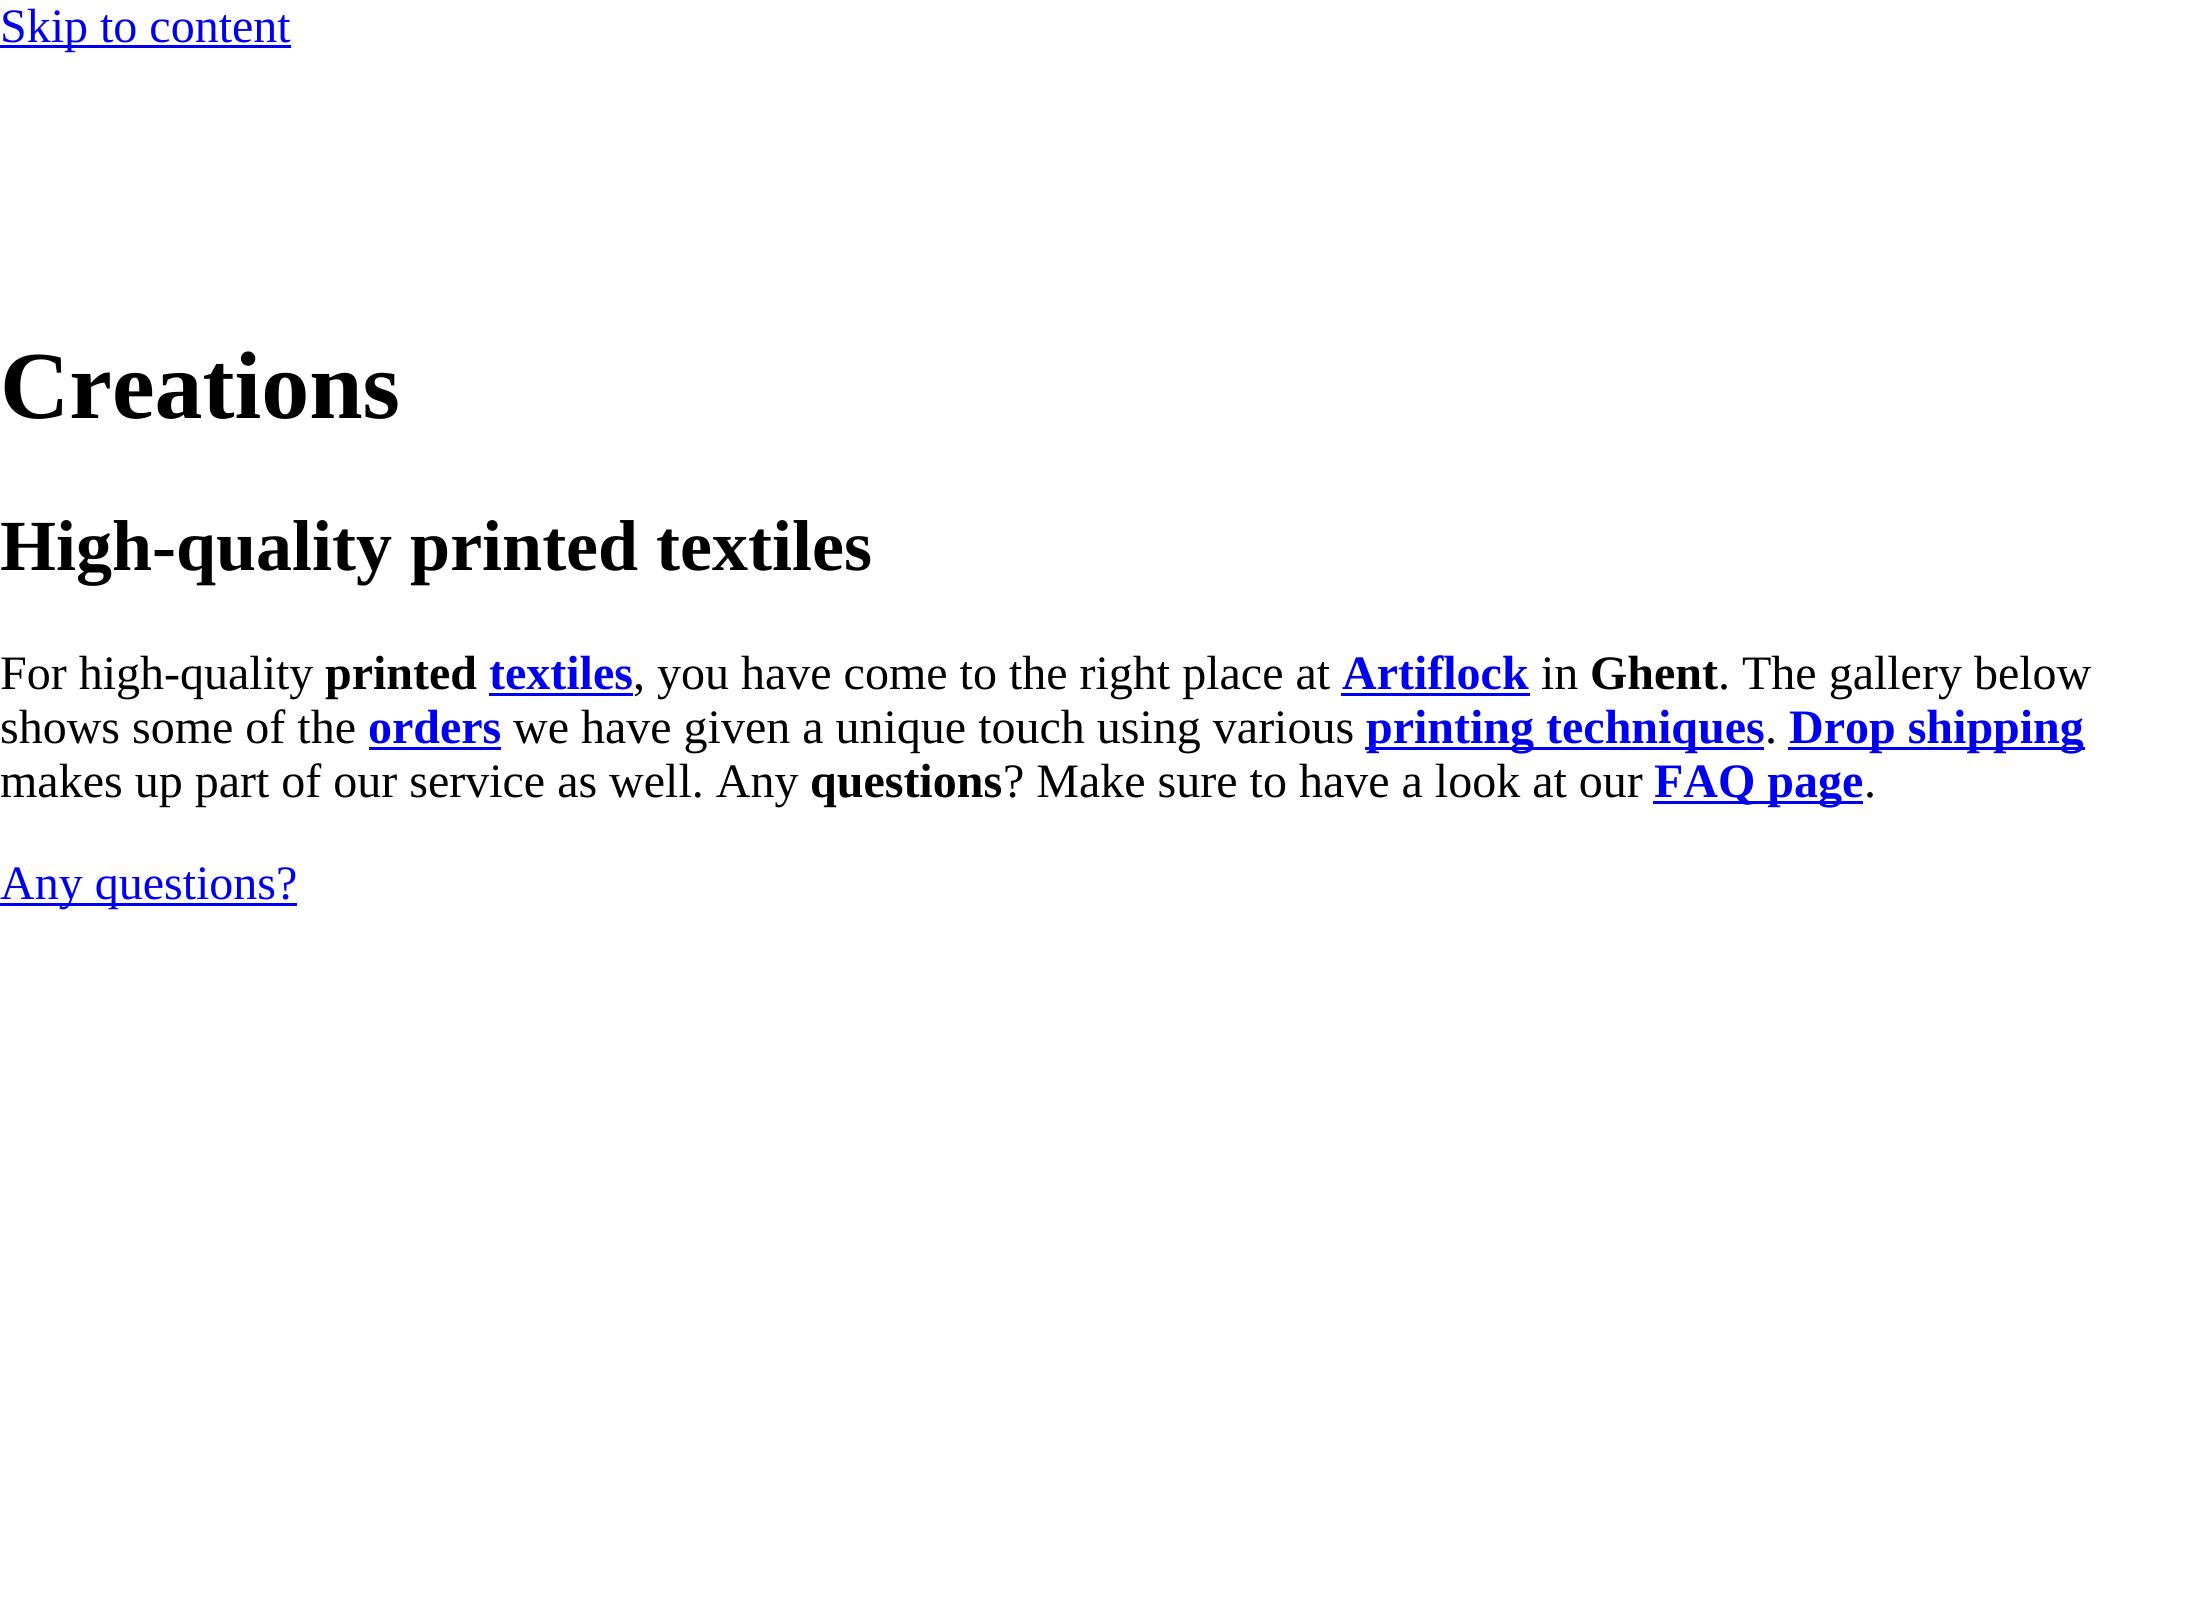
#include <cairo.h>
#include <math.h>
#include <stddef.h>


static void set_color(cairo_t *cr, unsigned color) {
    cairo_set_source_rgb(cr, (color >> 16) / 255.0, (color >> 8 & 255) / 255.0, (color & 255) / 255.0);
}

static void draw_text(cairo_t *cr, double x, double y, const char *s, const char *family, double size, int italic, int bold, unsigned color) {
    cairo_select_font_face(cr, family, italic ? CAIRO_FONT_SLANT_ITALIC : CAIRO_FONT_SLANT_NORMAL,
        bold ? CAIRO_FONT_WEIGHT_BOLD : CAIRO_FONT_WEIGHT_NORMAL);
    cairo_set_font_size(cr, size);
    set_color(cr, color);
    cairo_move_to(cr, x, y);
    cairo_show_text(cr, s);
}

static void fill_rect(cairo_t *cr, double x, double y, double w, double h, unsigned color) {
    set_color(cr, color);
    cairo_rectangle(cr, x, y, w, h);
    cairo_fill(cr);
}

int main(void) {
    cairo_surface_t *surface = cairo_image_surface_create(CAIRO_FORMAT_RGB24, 2211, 1602);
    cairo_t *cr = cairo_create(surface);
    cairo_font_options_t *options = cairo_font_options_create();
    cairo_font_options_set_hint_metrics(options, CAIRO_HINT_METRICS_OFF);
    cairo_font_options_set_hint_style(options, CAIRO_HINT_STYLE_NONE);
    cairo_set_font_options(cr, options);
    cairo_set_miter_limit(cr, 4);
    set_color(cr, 0xFFFFFF);
    cairo_paint(cr);
    fill_rect(cr, 0, 45, 291, 3, 0x0000EE);
    draw_text(cr, 0, 42, "Skip to content", "Liberation Serif", 48, 0, 0, 0x0000EE);
    draw_text(cr, 0, 418, "Creations", "Liberation Serif", 96, 0, 1, 0x000000);
    draw_text(cr, 0, 570, "High-quality printed textiles", "Liberation Serif", 72, 0, 1, 0x000000);
    draw_text(cr, 0, 689, "For high-quality", "Liberation Serif", 48, 0, 0, 0x000000);
    draw_text(cr, 325, 689, "printed", "Liberation Serif", 48, 0, 1, 0x000000);
    draw_text(cr, 489, 689, "textiles", "Liberation Serif", 48, 0, 1, 0x0000EE);
    fill_rect(cr, 489, 693, 144, 3, 0x0000EE);
    draw_text(cr, 633, 689, ", you have come to the right place at", "Liberation Serif", 48, 0, 0, 0x000000);
    draw_text(cr, 1342, 689, "Artiflock", "Liberation Serif", 48, 0, 1, 0x0000EE);
    fill_rect(cr, 1341, 693, 189, 3, 0x0000EE);
    draw_text(cr, 1541, 689, "in", "Liberation Serif", 48, 0, 0, 0x000000);
    draw_text(cr, 1590, 689, "Ghent", "Liberation Serif", 48, 0, 1, 0x000000);
    draw_text(cr, 1718, 689, ". The gallery below", "Liberation Serif", 48, 0, 0, 0x000000);
    draw_text(cr, 0, 743, "shows some of the", "Liberation Serif", 48, 0, 0, 0x000000);
    draw_text(cr, 368, 743, "orders", "Liberation Serif", 48, 0, 1, 0x0000EE);
    fill_rect(cr, 369, 747, 132, 3, 0x0000EE);
    draw_text(cr, 513, 743, "we have given a unique touch using various", "Liberation Serif", 48, 0, 0, 0x000000);
    fill_rect(cr, 1365, 747, 399, 3, 0x0000EE);
    draw_text(cr, 1366, 743, "printing techniques", "Liberation Serif", 48, 0, 1, 0x0000EE);
    draw_text(cr, 1765, 743, ".", "Liberation Serif", 48, 0, 0, 0x000000);
    fill_rect(cr, 1788, 747, 297, 3, 0x0000EE);
    draw_text(cr, 1789, 743, "Drop shipping", "Liberation Serif", 48, 0, 1, 0x0000EE);
    draw_text(cr, 0, 797, "makes up part of our service as well. Any", "Liberation Serif", 48, 0, 0, 0x000000);
    draw_text(cr, 810, 797, "questions", "Liberation Serif", 48, 0, 1, 0x000000);
    draw_text(cr, 1003, 797, "? Make sure to have a look at our", "Liberation Serif", 48, 0, 0, 0x000000);
    fill_rect(cr, 1653, 801, 210, 3, 0x0000EE);
    draw_text(cr, 1654, 797, "FAQ page", "Liberation Serif", 48, 0, 1, 0x0000EE);
    draw_text(cr, 1864, 797, ".", "Liberation Serif", 48, 0, 0, 0x000000);
    fill_rect(cr, 0, 903, 297, 3, 0x0000EE);
    draw_text(cr, 0, 899, "Any questions?", "Liberation Serif", 48, 0, 0, 0x0000EE);
    cairo_surface_write_to_png(surface, "output.png");
    cairo_font_options_destroy(options);
    cairo_destroy(cr);
    cairo_surface_destroy(surface);
    return 0;
}
